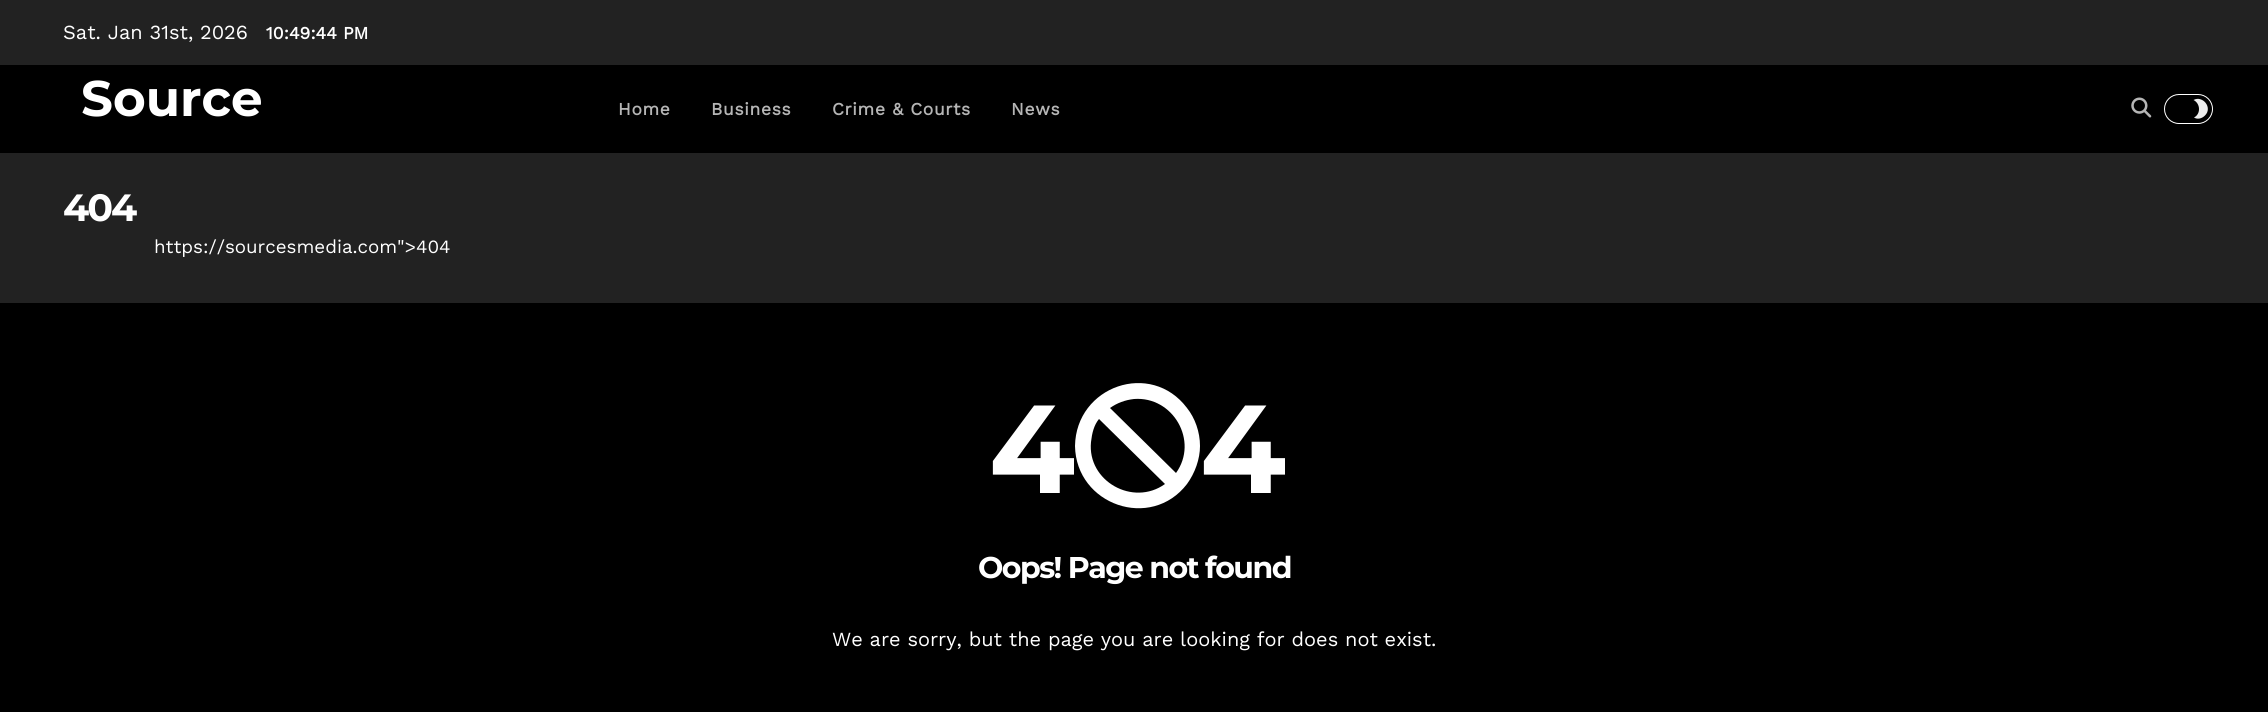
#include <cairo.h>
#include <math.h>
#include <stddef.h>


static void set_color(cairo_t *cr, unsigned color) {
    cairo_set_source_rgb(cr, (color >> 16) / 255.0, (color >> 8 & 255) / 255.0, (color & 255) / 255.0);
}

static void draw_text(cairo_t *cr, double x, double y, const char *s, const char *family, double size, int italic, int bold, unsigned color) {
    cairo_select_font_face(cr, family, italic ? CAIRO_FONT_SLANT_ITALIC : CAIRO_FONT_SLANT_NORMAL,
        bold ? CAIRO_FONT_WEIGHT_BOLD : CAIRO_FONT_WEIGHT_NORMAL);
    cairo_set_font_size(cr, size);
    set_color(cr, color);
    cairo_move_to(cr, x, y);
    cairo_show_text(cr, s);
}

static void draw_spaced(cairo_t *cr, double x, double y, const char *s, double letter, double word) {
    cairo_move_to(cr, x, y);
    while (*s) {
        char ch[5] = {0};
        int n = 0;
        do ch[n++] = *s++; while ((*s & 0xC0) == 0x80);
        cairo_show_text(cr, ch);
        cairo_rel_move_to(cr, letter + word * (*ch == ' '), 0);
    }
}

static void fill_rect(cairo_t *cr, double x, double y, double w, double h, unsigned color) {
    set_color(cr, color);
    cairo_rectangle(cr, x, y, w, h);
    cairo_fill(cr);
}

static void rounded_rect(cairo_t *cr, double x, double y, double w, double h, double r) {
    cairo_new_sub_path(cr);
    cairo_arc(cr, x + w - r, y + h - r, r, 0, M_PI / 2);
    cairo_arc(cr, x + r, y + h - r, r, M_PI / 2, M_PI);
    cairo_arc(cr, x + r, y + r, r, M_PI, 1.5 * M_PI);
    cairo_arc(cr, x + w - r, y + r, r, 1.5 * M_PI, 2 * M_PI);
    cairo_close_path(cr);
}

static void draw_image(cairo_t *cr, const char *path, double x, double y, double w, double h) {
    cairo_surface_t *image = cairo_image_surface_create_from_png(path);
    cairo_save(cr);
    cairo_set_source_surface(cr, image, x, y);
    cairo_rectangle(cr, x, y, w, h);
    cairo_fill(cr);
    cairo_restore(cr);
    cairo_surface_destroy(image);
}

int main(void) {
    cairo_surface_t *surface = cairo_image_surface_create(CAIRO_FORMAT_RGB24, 2268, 712);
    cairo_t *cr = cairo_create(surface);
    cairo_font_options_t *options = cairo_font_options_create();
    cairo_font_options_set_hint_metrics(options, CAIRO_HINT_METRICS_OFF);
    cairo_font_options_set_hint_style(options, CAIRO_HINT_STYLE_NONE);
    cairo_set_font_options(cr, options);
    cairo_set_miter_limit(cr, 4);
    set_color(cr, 0x000000);
    cairo_paint(cr);
    fill_rect(cr, 0, 0, 2268, 65, 0x222222);
    draw_text(cr, 63, 39, "Sat. Jan 31st, 2026", "Work Sans", 20, 0, 0, 0xFFFFFF);
    draw_text(cr, 266, 39, "10:49:44 PM", "Work Sans", 17.5, 0, 1, 0xFFFFFF);
    draw_text(cr, 81, 116, "Source", "Montserrat", 50, 0, 1, 0xFFFFFF);
    cairo_select_font_face(cr, "Work Sans", CAIRO_FONT_SLANT_NORMAL, CAIRO_FONT_WEIGHT_BOLD);
    cairo_set_font_size(cr, 17.5);
    set_color(cr, 0xB5B5B5);
    draw_spaced(cr, 618, 115, "Home", 0.6, 0);
    draw_spaced(cr, 711, 115, "Business", 0.6, 0);
    draw_spaced(cr, 832, 115, "Crime & Courts", 0.6, 0);
    draw_spaced(cr, 1011, 115, "News", 0.6, 0);
    draw_image(cr, "assets/img1.png", 2131, 97, 21, 21);
    rounded_rect(cr, 2164.5, 94.5, 48, 29, 14.5);
    set_color(cr, 0xFFFFFF);
    cairo_set_line_width(cr, 1);
    cairo_stroke(cr);
    set_color(cr, 0xEEEEEE);
    cairo_new_path(cr);
    cairo_move_to(cr, 2193.5, 100);
    cairo_curve_to(cr, 2200.5, 103.5, 2201, 114, 2194, 117.5);
    cairo_curve_to(cr, 2197, 119.5, 2201.5, 119, 2205, 115.5);
    cairo_curve_to(cr, 2213, 107.5, 2202.5, 95, 2193.5, 100);
    cairo_close_path(cr);
    cairo_fill(cr);
    fill_rect(cr, 0, 153, 2268, 150, 0x222222);
    cairo_select_font_face(cr, "Montserrat", CAIRO_FONT_SLANT_NORMAL, CAIRO_FONT_WEIGHT_BOLD);
    cairo_set_font_size(cr, 38);
    set_color(cr, 0xFFFFFF);
    draw_spaced(cr, 63, 221, "404", -2, 0);
    draw_text(cr, 154, 253, "https://sourcesmedia.com\">404", "Work Sans", 18.75, 0, 0, 0xFFFFFF);
    cairo_select_font_face(cr, "Montserrat", CAIRO_FONT_SLANT_NORMAL, CAIRO_FONT_WEIGHT_BOLD);
    cairo_set_font_size(cr, 125);
    draw_spaced(cr, 989, 493, "4", -6, 0);
    cairo_new_path(cr);
    cairo_move_to(cr, 1165, 484);
    cairo_line_to(cr, 1099, 419);
    cairo_curve_to(cr, 1094, 425, 1092, 433, 1091, 442);
    cairo_curve_to(cr, 1087, 481, 1133, 507, 1165, 484);
    cairo_close_path(cr);
    cairo_move_to(cr, 1176, 473);
    cairo_curve_to(cr, 1199, 441, 1173, 396, 1134, 399);
    cairo_curve_to(cr, 1125, 400, 1117, 403, 1110, 408);
    cairo_close_path(cr);
    cairo_move_to(cr, 1075, 446);
    cairo_curve_to(cr, 1076, 386, 1151, 360, 1187, 408);
    cairo_curve_to(cr, 1195, 418, 1200, 432, 1200, 446);
    cairo_curve_to(cr, 1200, 459, 1195, 473, 1187, 484);
    cairo_curve_to(cr, 1151, 531, 1076, 505, 1075, 446);
    cairo_close_path(cr);
    cairo_fill(cr);
    draw_spaced(cr, 1200, 493, "4", -6, 0);
    cairo_set_font_size(cr, 30);
    draw_spaced(cr, 978, 578, "Oops! Page not found", -1.5, 0);
    draw_text(cr, 832, 646, "We are sorry, but the page you are looking for does not exist.", "Work Sans", 20, 0, 0, 0xFFFFFF);
    cairo_surface_write_to_png(surface, "output.png");
    cairo_font_options_destroy(options);
    cairo_destroy(cr);
    cairo_surface_destroy(surface);
    return 0;
}
